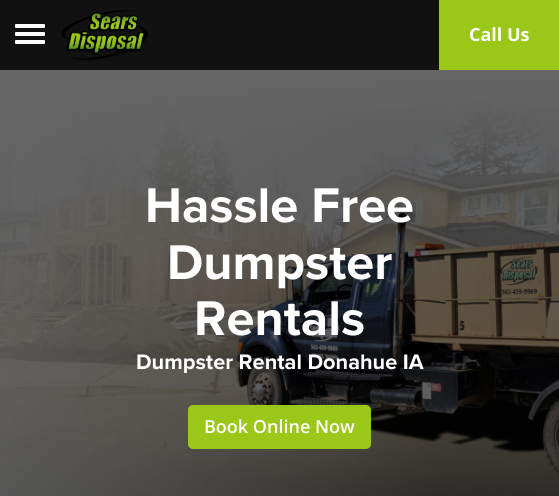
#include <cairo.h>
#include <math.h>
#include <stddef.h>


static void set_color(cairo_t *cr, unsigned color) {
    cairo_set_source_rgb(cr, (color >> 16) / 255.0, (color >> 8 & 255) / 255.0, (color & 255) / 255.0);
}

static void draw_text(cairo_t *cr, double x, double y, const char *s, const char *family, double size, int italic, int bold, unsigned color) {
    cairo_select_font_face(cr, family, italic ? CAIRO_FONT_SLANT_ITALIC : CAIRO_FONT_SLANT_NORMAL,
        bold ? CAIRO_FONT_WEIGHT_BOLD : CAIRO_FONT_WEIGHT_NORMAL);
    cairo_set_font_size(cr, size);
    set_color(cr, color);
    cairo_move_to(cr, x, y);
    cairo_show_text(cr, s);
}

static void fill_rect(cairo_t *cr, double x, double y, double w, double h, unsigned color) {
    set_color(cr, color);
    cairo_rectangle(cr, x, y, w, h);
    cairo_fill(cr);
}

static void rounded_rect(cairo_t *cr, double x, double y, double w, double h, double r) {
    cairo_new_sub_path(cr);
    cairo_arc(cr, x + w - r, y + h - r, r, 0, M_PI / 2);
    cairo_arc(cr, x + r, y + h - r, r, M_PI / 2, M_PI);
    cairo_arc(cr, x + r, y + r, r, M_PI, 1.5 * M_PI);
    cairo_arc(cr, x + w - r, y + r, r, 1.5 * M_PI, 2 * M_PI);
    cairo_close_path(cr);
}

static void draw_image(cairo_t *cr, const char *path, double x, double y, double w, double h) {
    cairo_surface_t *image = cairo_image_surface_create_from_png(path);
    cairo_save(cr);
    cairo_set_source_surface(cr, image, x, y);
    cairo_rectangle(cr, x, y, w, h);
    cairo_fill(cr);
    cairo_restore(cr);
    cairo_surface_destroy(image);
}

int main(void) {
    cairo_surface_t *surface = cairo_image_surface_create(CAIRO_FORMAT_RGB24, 559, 496);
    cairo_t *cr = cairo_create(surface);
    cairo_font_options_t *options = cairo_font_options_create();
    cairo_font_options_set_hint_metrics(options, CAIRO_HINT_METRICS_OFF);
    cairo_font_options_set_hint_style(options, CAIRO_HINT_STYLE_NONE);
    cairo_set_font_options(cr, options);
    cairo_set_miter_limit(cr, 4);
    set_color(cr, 0x666666);
    cairo_paint(cr);
    fill_rect(cr, 0, 0, 439, 70, 0x111111);
    set_color(cr, 0xFFFFFF);
    rounded_rect(cr, 15, 24, 30, 4, 1);
    cairo_fill(cr);
    rounded_rect(cr, 15, 32, 30, 4, 1);
    cairo_fill(cr);
    rounded_rect(cr, 15, 40, 30, 4, 1);
    cairo_fill(cr);
    draw_image(cr, "assets/img1.png", 61, 10, 87, 50);
    fill_rect(cr, 439, 0, 120, 70, 0x9BC718);
    draw_text(cr, 469, 41, "Call Us", "Open Sans", 18, 0, 1, 0xFFFFFF);
    draw_image(cr, "assets/img2.png", 0, 79, 559, 417);
    draw_text(cr, 145, 222, "Hassle Free", "Proxima Nova", 50.5, 0, 1, 0xFFFFFF);
    draw_text(cr, 167, 279, "Dumpster", "Proxima Nova", 50.5, 0, 1, 0xFFFFFF);
    draw_text(cr, 194, 335, "Rentals", "Proxima Nova", 50.5, 0, 1, 0xFFFFFF);
    draw_text(cr, 136, 369, "Dumpster Rental Donahue IA", "Proxima Nova", 21.75, 0, 1, 0xFFFFFF);
    set_color(cr, 0x9BC718);
    rounded_rect(cr, 189, 406, 181, 42, 4);
    cairo_fill_preserve(cr);
    cairo_stroke(cr);
    draw_text(cr, 204, 433, "Book Online Now", "Open Sans SemiBold", 18, 0, 0, 0xFFFFFF);
    cairo_surface_write_to_png(surface, "output.png");
    cairo_font_options_destroy(options);
    cairo_destroy(cr);
    cairo_surface_destroy(surface);
    return 0;
}
